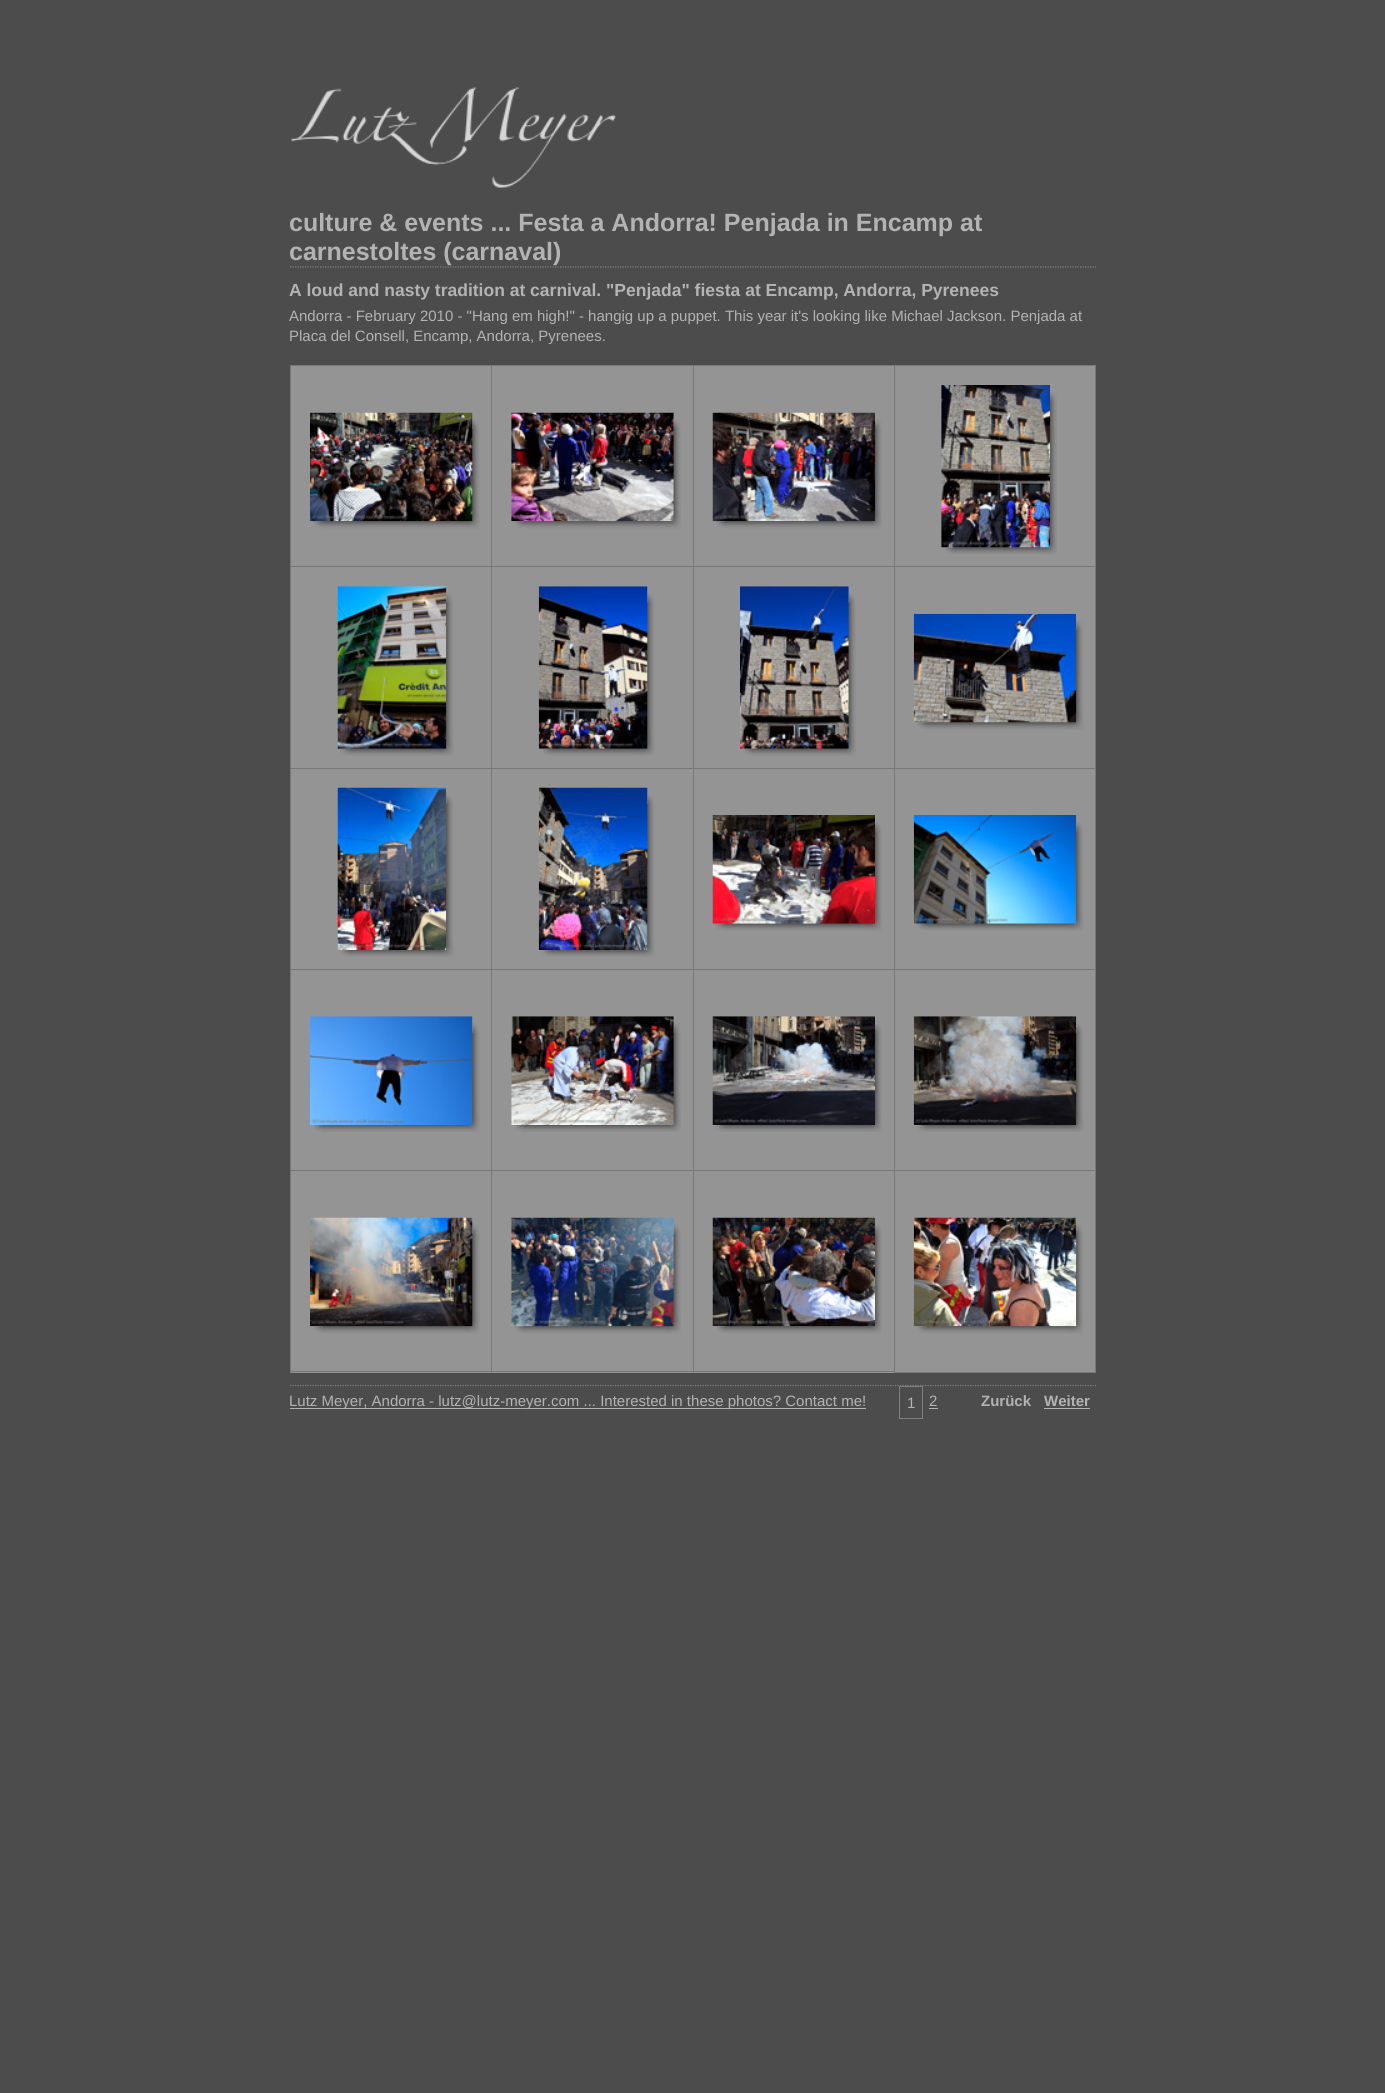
#include <cairo.h>
#include <math.h>
#include <stddef.h>


static void set_color(cairo_t *cr, unsigned color) {
    cairo_set_source_rgb(cr, (color >> 16) / 255.0, (color >> 8 & 255) / 255.0, (color & 255) / 255.0);
}

static void draw_text(cairo_t *cr, double x, double y, const char *s, const char *family, double size, int italic, int bold, unsigned color) {
    cairo_select_font_face(cr, family, italic ? CAIRO_FONT_SLANT_ITALIC : CAIRO_FONT_SLANT_NORMAL,
        bold ? CAIRO_FONT_WEIGHT_BOLD : CAIRO_FONT_WEIGHT_NORMAL);
    cairo_set_font_size(cr, size);
    set_color(cr, color);
    cairo_move_to(cr, x, y);
    cairo_show_text(cr, s);
}

static void fill_rect(cairo_t *cr, double x, double y, double w, double h, unsigned color) {
    set_color(cr, color);
    cairo_rectangle(cr, x, y, w, h);
    cairo_fill(cr);
}

static void draw_image(cairo_t *cr, const char *path, double x, double y, double w, double h) {
    cairo_surface_t *image = cairo_image_surface_create_from_png(path);
    cairo_save(cr);
    cairo_set_source_surface(cr, image, x, y);
    cairo_rectangle(cr, x, y, w, h);
    cairo_fill(cr);
    cairo_restore(cr);
    cairo_surface_destroy(image);
}

int main(void) {
    cairo_surface_t *surface = cairo_image_surface_create(CAIRO_FORMAT_RGB24, 1385, 2093);
    cairo_t *cr = cairo_create(surface);
    cairo_font_options_t *options = cairo_font_options_create();
    cairo_font_options_set_hint_metrics(options, CAIRO_HINT_METRICS_OFF);
    cairo_font_options_set_hint_style(options, CAIRO_HINT_STYLE_NONE);
    cairo_set_font_options(cr, options);
    cairo_set_miter_limit(cr, 4);
    set_color(cr, 0x4C4C4C);
    cairo_paint(cr);
    draw_image(cr, "assets/img1.png", 291, 87, 326, 101);
    cairo_new_path(cr);
    cairo_move_to(cr, 290, 267);
    cairo_line_to(cr, 1096, 267);
    set_color(cr, 0x7F7F7F);
    cairo_set_line_width(cr, 1.2);
    cairo_set_dash(cr, (double[]){1.25, 1.25}, 2, 0);
    cairo_stroke(cr);
    draw_text(cr, 289, 231, "culture & events ... Festa a Andorra! Penjada in Encamp at", "Liberation Sans", 25, 0, 1, 0xB3B3B3);
    draw_text(cr, 289, 260, "carnestoltes (carnaval)", "Liberation Sans", 25, 0, 1, 0xB3B3B3);
    draw_text(cr, 289, 296, "A loud and nasty tradition at carnival. \"Penjada\" fiesta at Encamp, Andorra, Pyrenees", "Liberation Sans", 17.5, 0, 1, 0xB3B3B3);
    draw_text(cr, 289, 321, "Andorra - February 2010 - \"Hang em high!\" - hangig up a puppet. This year it's looking like Michael Jackson. Penjada at", "Liberation Sans", 15, 0, 0, 0xB3B3B3);
    draw_text(cr, 289, 341, "Placa del Consell, Encamp, Andorra, Pyrenees.", "Liberation Sans", 15, 0, 0, 0xB3B3B3);
    cairo_rectangle(cr, 899.5, 1386.5, 23, 32);
    set_color(cr, 0x7F7F7F);
    cairo_set_line_width(cr, 1);
    cairo_set_dash(cr, NULL, 0, 0);
    cairo_stroke(cr);
    cairo_new_path(cr);
    cairo_move_to(cr, 290, 1385.5);
    cairo_line_to(cr, 1096, 1385.5);
    cairo_set_line_width(cr, 1.2);
    cairo_set_dash(cr, (double[]){1.25, 1.25}, 2, 0);
    cairo_stroke(cr);
    fill_rect(cr, 291, 366, 200, 200, 0x949494);
    fill_rect(cr, 290, 365, 806, 1, 0x787878);
    fill_rect(cr, 290, 365, 1, 201, 0x787878);
    draw_image(cr, "assets/img2.png", 322, 428, 158, 101);
    draw_image(cr, "assets/img4.png", 472, 419, 7, 10);
    draw_image(cr, "assets/img5.png", 313, 521, 10, 7);
    draw_image(cr, "assets/img3.png", 310, 412, 163, 110);
    fill_rect(cr, 492, 366, 201, 200, 0x949494);
    fill_rect(cr, 491, 365, 1, 201, 0x787878);
    draw_image(cr, "assets/img6.png", 523, 428, 158, 101);
    draw_image(cr, "assets/img8.png", 673, 419, 7, 10);
    draw_image(cr, "assets/img9.png", 514, 521, 10, 7);
    draw_image(cr, "assets/img7.png", 511, 412, 163, 110);
    fill_rect(cr, 694, 366, 200, 200, 0x949494);
    fill_rect(cr, 693, 365, 1, 201, 0x787878);
    draw_image(cr, "assets/img10.png", 725, 428, 157, 101);
    draw_image(cr, "assets/img13.png", 716, 521, 9, 7);
    draw_image(cr, "assets/img11.png", 712, 412, 163, 110);
    draw_image(cr, "assets/img12.png", 875, 419, 7, 10);
    fill_rect(cr, 895, 366, 200, 200, 0x949494);
    fill_rect(cr, 1095, 365, 1, 201, 0x787878);
    fill_rect(cr, 894, 365, 1, 201, 0x787878);
    draw_image(cr, "assets/img14.png", 953, 401, 104, 154);
    draw_image(cr, "assets/img17.png", 944, 547, 10, 7);
    draw_image(cr, "assets/img15.png", 941, 385, 109, 163);
    draw_image(cr, "assets/img16.png", 1050, 392, 7, 10);
    fill_rect(cr, 291, 567, 200, 201, 0x949494);
    fill_rect(cr, 290, 566, 806, 1, 0x787878);
    fill_rect(cr, 290, 566, 1, 202, 0x787878);
    draw_image(cr, "assets/img18.png", 350, 602, 104, 154);
    draw_image(cr, "assets/img20.png", 446, 593, 7, 10);
    draw_image(cr, "assets/img21.png", 340, 748, 10, 7);
    draw_image(cr, "assets/img19.png", 337, 586, 110, 163);
    fill_rect(cr, 492, 567, 201, 201, 0x949494);
    fill_rect(cr, 491, 566, 1, 202, 0x787878);
    draw_image(cr, "assets/img22.png", 551, 602, 104, 154);
    draw_image(cr, "assets/img24.png", 647, 593, 7, 10);
    draw_image(cr, "assets/img25.png", 542, 748, 10, 7);
    draw_image(cr, "assets/img23.png", 538, 586, 110, 163);
    fill_rect(cr, 694, 567, 200, 201, 0x949494);
    fill_rect(cr, 693, 566, 1, 202, 0x787878);
    draw_image(cr, "assets/img26.png", 752, 602, 104, 154);
    draw_image(cr, "assets/img28.png", 848, 593, 7, 10);
    draw_image(cr, "assets/img29.png", 743, 748, 10, 7);
    draw_image(cr, "assets/img27.png", 740, 586, 109, 163);
    fill_rect(cr, 895, 567, 200, 201, 0x949494);
    fill_rect(cr, 1095, 566, 1, 202, 0x787878);
    fill_rect(cr, 894, 566, 1, 202, 0x787878);
    draw_image(cr, "assets/img30.png", 926, 630, 158, 100);
    draw_image(cr, "assets/img32.png", 1076, 621, 7, 9);
    draw_image(cr, "assets/img33.png", 917, 722, 10, 7);
    draw_image(cr, "assets/img31.png", 913, 613, 164, 110);
    fill_rect(cr, 291, 769, 200, 200, 0x949494);
    fill_rect(cr, 290, 768, 806, 1, 0x787878);
    fill_rect(cr, 290, 768, 1, 201, 0x787878);
    draw_image(cr, "assets/img34.png", 350, 803, 104, 154);
    draw_image(cr, "assets/img36.png", 446, 794, 7, 10);
    draw_image(cr, "assets/img35.png", 337, 787, 110, 163);
    draw_image(cr, "assets/img37.png", 340, 950, 10, 7);
    fill_rect(cr, 492, 769, 201, 200, 0x949494);
    fill_rect(cr, 491, 768, 1, 201, 0x787878);
    draw_image(cr, "assets/img38.png", 551, 803, 104, 154);
    draw_image(cr, "assets/img4.png", 647, 794, 7, 10);
    draw_image(cr, "assets/img39.png", 538, 787, 110, 163);
    draw_image(cr, "assets/img40.png", 542, 950, 10, 7);
    fill_rect(cr, 694, 769, 200, 200, 0x949494);
    fill_rect(cr, 693, 768, 1, 201, 0x787878);
    draw_image(cr, "assets/img41.png", 725, 831, 157, 100);
    draw_image(cr, "assets/img44.png", 715, 923, 10, 7);
    draw_image(cr, "assets/img42.png", 712, 815, 163, 109);
    draw_image(cr, "assets/img43.png", 875, 822, 7, 10);
    fill_rect(cr, 895, 769, 200, 200, 0x949494);
    fill_rect(cr, 1095, 768, 1, 201, 0x787878);
    fill_rect(cr, 894, 768, 1, 201, 0x787878);
    draw_image(cr, "assets/img45.png", 926, 831, 158, 100);
    draw_image(cr, "assets/img47.png", 1076, 822, 7, 10);
    draw_image(cr, "assets/img48.png", 917, 923, 10, 7);
    draw_image(cr, "assets/img46.png", 913, 815, 164, 109);
    fill_rect(cr, 291, 970, 200, 200, 0x949494);
    fill_rect(cr, 290, 969, 806, 1, 0x787878);
    fill_rect(cr, 290, 969, 1, 201, 0x787878);
    draw_image(cr, "assets/img49.png", 322, 1032, 158, 100);
    draw_image(cr, "assets/img24.png", 472, 1023, 7, 10);
    draw_image(cr, "assets/img50.png", 310, 1016, 163, 109);
    draw_image(cr, "assets/img51.png", 313, 1125, 10, 7);
    fill_rect(cr, 492, 970, 201, 200, 0x949494);
    fill_rect(cr, 491, 969, 1, 201, 0x787878);
    draw_image(cr, "assets/img52.png", 523, 1032, 158, 100);
    draw_image(cr, "assets/img28.png", 673, 1023, 7, 10);
    draw_image(cr, "assets/img53.png", 511, 1016, 163, 109);
    draw_image(cr, "assets/img54.png", 514, 1125, 10, 7);
    fill_rect(cr, 694, 970, 200, 200, 0x949494);
    fill_rect(cr, 693, 969, 1, 201, 0x787878);
    draw_image(cr, "assets/img55.png", 725, 1032, 157, 100);
    draw_image(cr, "assets/img56.png", 712, 1016, 163, 109);
    draw_image(cr, "assets/img57.png", 875, 1023, 7, 10);
    draw_image(cr, "assets/img58.png", 715, 1125, 10, 7);
    fill_rect(cr, 895, 970, 200, 200, 0x949494);
    fill_rect(cr, 1095, 969, 1, 201, 0x787878);
    fill_rect(cr, 894, 969, 1, 201, 0x787878);
    draw_image(cr, "assets/img59.png", 926, 1032, 158, 100);
    draw_image(cr, "assets/img20.png", 1076, 1023, 7, 10);
    draw_image(cr, "assets/img60.png", 913, 1016, 164, 109);
    draw_image(cr, "assets/img61.png", 917, 1125, 10, 7);
    fill_rect(cr, 291, 1171, 200, 202, 0x949494);
    fill_rect(cr, 290, 1170, 604, 1, 0x787878);
    fill_rect(cr, 290, 1371, 201, 1, 0x787878);
    fill_rect(cr, 290, 1170, 1, 203, 0x787878);
    draw_image(cr, "assets/img2.png", 322, 1233, 158, 101);
    draw_image(cr, "assets/img4.png", 472, 1224, 7, 10);
    draw_image(cr, "assets/img5.png", 313, 1326, 10, 7);
    draw_image(cr, "assets/img62.png", 310, 1217, 163, 110);
    fill_rect(cr, 492, 1171, 201, 202, 0x949494);
    fill_rect(cr, 491, 1371, 202, 1, 0x787878);
    fill_rect(cr, 491, 1170, 1, 203, 0x787878);
    draw_image(cr, "assets/img6.png", 523, 1233, 158, 101);
    draw_image(cr, "assets/img8.png", 673, 1224, 7, 10);
    draw_image(cr, "assets/img9.png", 514, 1326, 10, 7);
    draw_image(cr, "assets/img63.png", 511, 1217, 163, 110);
    fill_rect(cr, 694, 1171, 200, 202, 0x949494);
    fill_rect(cr, 693, 1371, 201, 1, 0x787878);
    fill_rect(cr, 693, 1170, 1, 203, 0x787878);
    draw_image(cr, "assets/img10.png", 725, 1233, 157, 101);
    draw_image(cr, "assets/img13.png", 716, 1326, 9, 7);
    draw_image(cr, "assets/img64.png", 712, 1217, 163, 110);
    draw_image(cr, "assets/img12.png", 875, 1224, 7, 10);
    set_color(cr, 0x949494);
    cairo_rectangle(cr, 894.5, 1170.5, 201, 202);
    cairo_fill_preserve(cr);
    set_color(cr, 0x787878);
    cairo_set_line_width(cr, 1);
    cairo_set_dash(cr, NULL, 0, 0);
    cairo_stroke(cr);
    draw_image(cr, "assets/img65.png", 926, 1233, 158, 101);
    draw_image(cr, "assets/img36.png", 1076, 1224, 7, 10);
    draw_image(cr, "assets/img67.png", 917, 1326, 10, 7);
    draw_image(cr, "assets/img66.png", 913, 1217, 164, 110);
    fill_rect(cr, 290, 1408, 576, 1, 0xB3B3B3);
    draw_text(cr, 289, 1406, "Lutz Meyer, Andorra - lutz@lutz-meyer.com ... Interested in these photos? Contact me!", "Liberation Sans", 15, 0, 0, 0xB3B3B3);
    draw_text(cr, 907, 1408, "1", "Liberation Sans", 15, 0, 0, 0xB3B3B3);
    draw_text(cr, 929, 1406, "2", "Liberation Sans", 15, 0, 0, 0xB3B3B3);
    fill_rect(cr, 929, 1408, 9, 1, 0xB3B3B3);
    draw_text(cr, 981, 1406, "Zurück", "Liberation Sans", 15, 0, 1, 0xB3B3B3);
    draw_text(cr, 1044, 1406, "Weiter", "Liberation Sans", 15, 0, 1, 0xB3B3B3);
    fill_rect(cr, 1044, 1408, 46, 1, 0xB3B3B3);
    cairo_surface_write_to_png(surface, "output.png");
    cairo_font_options_destroy(options);
    cairo_destroy(cr);
    cairo_surface_destroy(surface);
    return 0;
}
